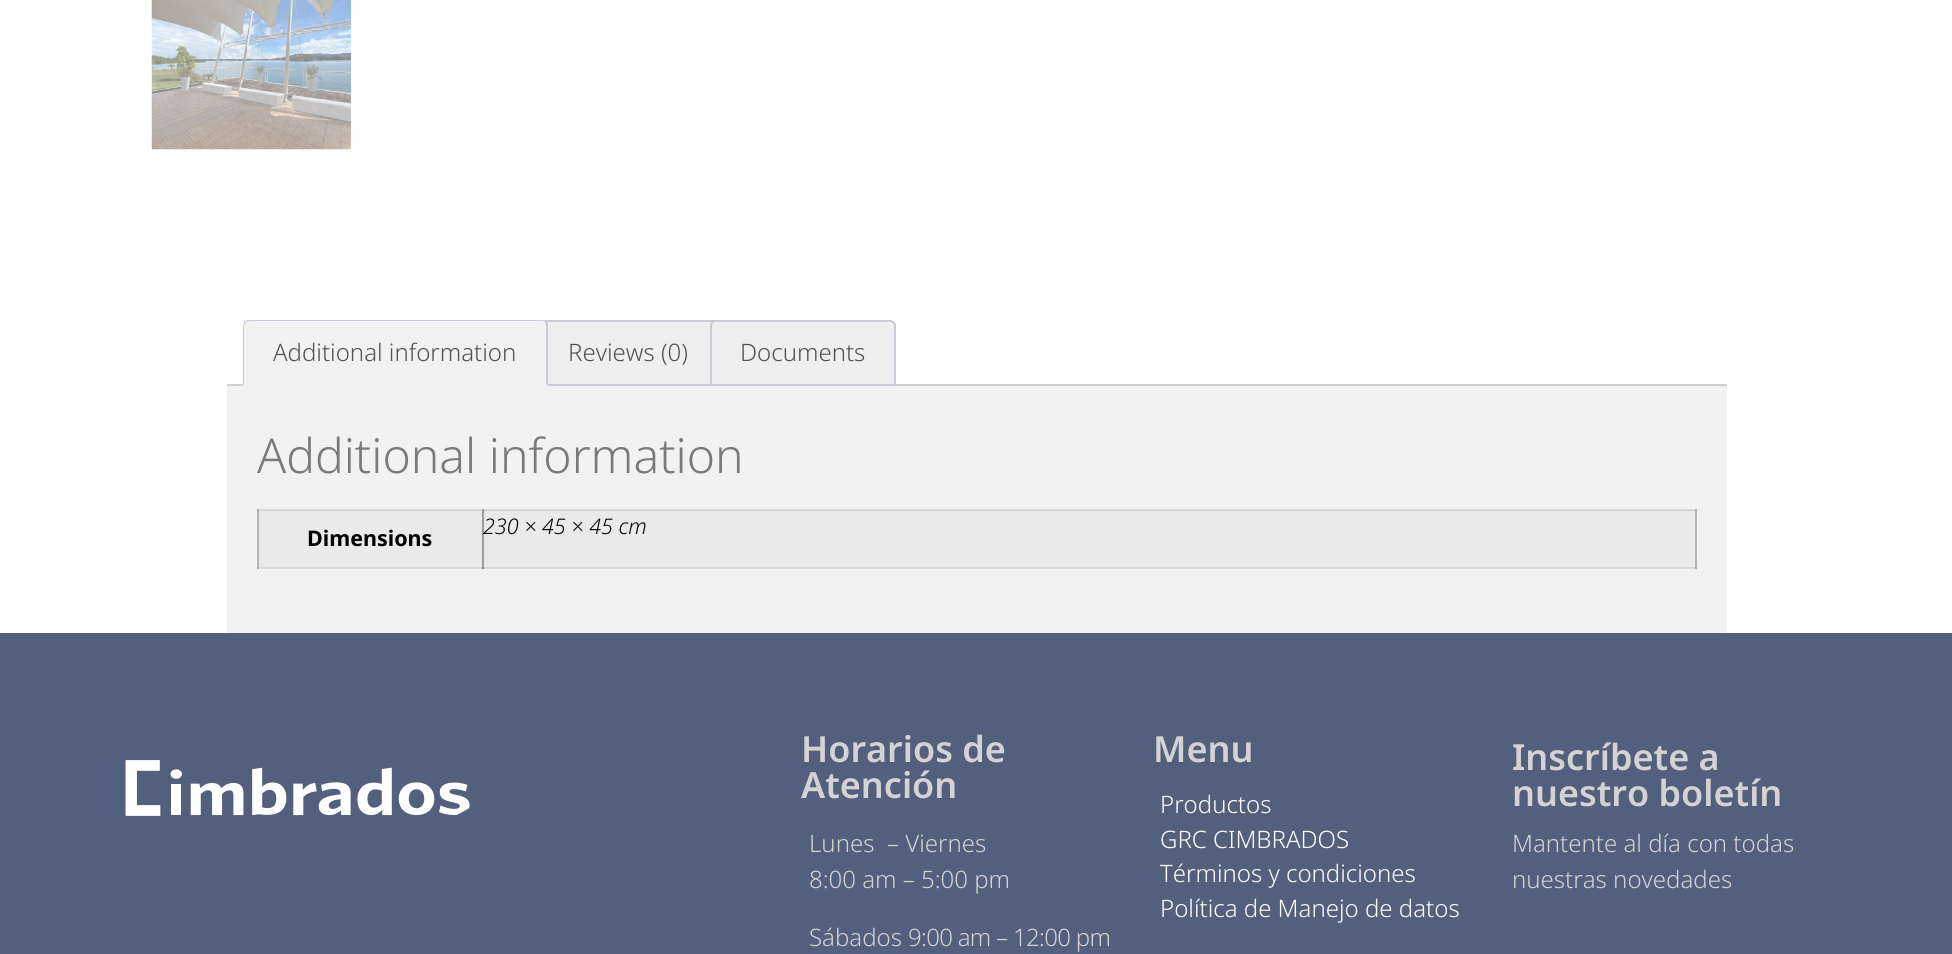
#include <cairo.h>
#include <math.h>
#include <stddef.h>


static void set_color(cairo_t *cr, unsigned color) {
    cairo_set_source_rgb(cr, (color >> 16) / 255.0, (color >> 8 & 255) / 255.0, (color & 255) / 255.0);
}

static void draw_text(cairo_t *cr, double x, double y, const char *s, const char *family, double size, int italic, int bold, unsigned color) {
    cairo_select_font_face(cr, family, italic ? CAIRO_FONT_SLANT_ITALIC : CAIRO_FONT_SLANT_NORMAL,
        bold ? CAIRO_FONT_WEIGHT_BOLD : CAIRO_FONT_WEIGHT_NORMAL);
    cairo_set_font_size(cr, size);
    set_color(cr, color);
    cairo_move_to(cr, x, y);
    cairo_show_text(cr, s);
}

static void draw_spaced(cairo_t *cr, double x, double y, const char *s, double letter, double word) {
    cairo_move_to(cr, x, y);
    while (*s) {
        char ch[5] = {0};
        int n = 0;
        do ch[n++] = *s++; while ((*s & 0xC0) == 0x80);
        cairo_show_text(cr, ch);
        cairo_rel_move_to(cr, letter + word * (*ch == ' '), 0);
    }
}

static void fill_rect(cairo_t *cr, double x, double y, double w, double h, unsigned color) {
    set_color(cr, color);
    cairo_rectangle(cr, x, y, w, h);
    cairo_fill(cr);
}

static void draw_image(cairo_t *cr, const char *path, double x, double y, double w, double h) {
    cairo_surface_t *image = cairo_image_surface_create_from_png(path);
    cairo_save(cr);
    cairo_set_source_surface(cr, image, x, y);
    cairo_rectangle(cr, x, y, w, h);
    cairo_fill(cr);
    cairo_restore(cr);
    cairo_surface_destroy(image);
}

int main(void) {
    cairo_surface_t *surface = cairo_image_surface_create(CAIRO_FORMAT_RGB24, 1952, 954);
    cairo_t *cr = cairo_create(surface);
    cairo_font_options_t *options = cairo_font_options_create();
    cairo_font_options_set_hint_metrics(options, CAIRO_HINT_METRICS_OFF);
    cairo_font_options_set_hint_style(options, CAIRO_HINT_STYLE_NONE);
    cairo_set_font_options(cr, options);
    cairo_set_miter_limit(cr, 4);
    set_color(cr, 0xFFFFFF);
    cairo_paint(cr);
    draw_image(cr, "assets/img1.png", 151, 0, 200, 150);
    fill_rect(cr, 227, 384, 1500, 2, 0xD3CED2);
    set_color(cr, 0xEFEFEF);
    cairo_new_path(cr);
    cairo_move_to(cr, 545, 321);
    cairo_line_to(cr, 713, 321);
    cairo_curve_to(cr, 716, 321, 718, 323, 718, 326);
    cairo_line_to(cr, 718, 385);
    cairo_line_to(cr, 540, 385);
    cairo_line_to(cr, 540, 326);
    cairo_curve_to(cr, 540, 323, 542, 321, 545, 321);
    cairo_close_path(cr);
    cairo_fill_preserve(cr);
    set_color(cr, 0xCFC8D8);
    cairo_stroke(cr);
    set_color(cr, 0xF2F2F2);
    cairo_new_path(cr);
    cairo_move_to(cr, 249, 320);
    cairo_line_to(cr, 542, 320);
    cairo_curve_to(cr, 545.5, 320, 548, 322.5, 548, 326);
    cairo_line_to(cr, 548, 386);
    cairo_line_to(cr, 243, 386);
    cairo_line_to(cr, 243, 326);
    cairo_curve_to(cr, 243, 322.5, 245.5, 320, 249, 320);
    cairo_close_path(cr);
    cairo_fill(cr);
    set_color(cr, 0xCFC8D8);
    cairo_new_path(cr);
    cairo_move_to(cr, 249, 320);
    cairo_curve_to(cr, 248, 320, 246, 320, 245, 321);
    cairo_line_to(cr, 246, 322);
    cairo_line_to(cr, 249, 321);
    cairo_line_to(cr, 542, 321);
    cairo_line_to(cr, 545, 322);
    cairo_line_to(cr, 546, 321);
    cairo_line_to(cr, 542, 320);
    cairo_close_path(cr);
    cairo_fill(cr);
    cairo_new_path(cr);
    cairo_move_to(cr, 546, 321);
    cairo_line_to(cr, 548, 323);
    cairo_line_to(cr, 548, 386);
    cairo_line_to(cr, 546, 384);
    cairo_line_to(cr, 546, 326);
    cairo_curve_to(cr, 546, 324, 545, 323, 545, 322);
    cairo_close_path(cr);
    cairo_fill(cr);
    set_color(cr, 0xF2F2F2);
    cairo_new_path(cr);
    cairo_move_to(cr, 548, 386);
    cairo_line_to(cr, 546, 384);
    cairo_line_to(cr, 244, 384);
    cairo_line_to(cr, 243, 386);
    cairo_close_path(cr);
    cairo_fill(cr);
    set_color(cr, 0xCFC8D8);
    cairo_new_path(cr);
    cairo_move_to(cr, 243, 386);
    cairo_line_to(cr, 244, 384);
    cairo_line_to(cr, 244, 325);
    cairo_line_to(cr, 246, 322);
    cairo_line_to(cr, 245, 321);
    cairo_curve_to(cr, 244, 322, 243, 324, 243, 326);
    cairo_close_path(cr);
    cairo_fill(cr);
    draw_text(cr, 273, 361, "Additional information", "Noto Sans Light", 24, 0, 0, 0x515151);
    draw_text(cr, 568, 361, "Reviews (0)", "Noto Sans Light", 24, 0, 0, 0x515151);
    set_color(cr, 0xEFEFEF);
    cairo_new_path(cr);
    cairo_move_to(cr, 716, 321);
    cairo_line_to(cr, 890, 321);
    cairo_curve_to(cr, 893, 321, 895, 323, 895, 326);
    cairo_line_to(cr, 895, 385);
    cairo_line_to(cr, 711, 385);
    cairo_line_to(cr, 711, 326);
    cairo_curve_to(cr, 711, 323, 713, 321, 716, 321);
    cairo_close_path(cr);
    cairo_fill_preserve(cr);
    set_color(cr, 0xCFC8D8);
    cairo_stroke(cr);
    draw_text(cr, 740, 361, "Documents", "Noto Sans Light", 24, 0, 0, 0x515151);
    fill_rect(cr, 227, 386, 1500, 247, 0xF2F2F2);
    fill_rect(cr, 257, 509, 1, 60, 0xB9B9B9);
    fill_rect(cr, 257, 567, 1440, 2, 0xDADADA);
    fill_rect(cr, 257, 567, 2, 2, 0xADADAD);
    fill_rect(cr, 482, 567, 2, 2, 0x979797);
    fill_rect(cr, 482, 567, 1, 2, 0x888888);
    fill_rect(cr, 1695, 567, 2, 2, 0xA7A7A7);
    fill_rect(cr, 257, 509, 1440, 1, 0xDADADA);
    fill_rect(cr, 257, 509, 2, 2, 0xADADAD);
    fill_rect(cr, 482, 509, 2, 1, 0x979797);
    fill_rect(cr, 1695, 509, 2, 1, 0xADADAD);
    draw_text(cr, 257, 473, "Additional information", "Noto Sans Light", 48, 0, 0, 0x7A7A7A);
    fill_rect(cr, 484, 511, 1211, 56, 0xEAEAEA);
    fill_rect(cr, 1695, 510, 2, 57, 0xB5B5B5);
    fill_rect(cr, 482, 510, 2, 57, 0x9B9B9B);
    fill_rect(cr, 483, 510, 1214, 1, 0xD3D3D3);
    fill_rect(cr, 483, 510, 1, 1, 0x959595);
    fill_rect(cr, 1695, 510, 2, 1, 0xAAAAAA);
    draw_text(cr, 483, 534, "230 × 45 × 45 cm", "Noto Sans Light", 21.5, 1, 0, 0x020101);
    fill_rect(cr, 259, 511, 223, 56, 0xEAEAEA);
    fill_rect(cr, 258, 510, 1, 57, 0xB5B5B5);
    fill_rect(cr, 258, 510, 225, 1, 0xD3D3D3);
    fill_rect(cr, 258, 510, 1, 1, 0xAAAAAA);
    fill_rect(cr, 482, 510, 1, 1, 0x959595);
    draw_text(cr, 307, 546, "Dimensions", "Noto Sans", 21.5, 0, 1, 0x020101);
    fill_rect(cr, 0, 633, 1952, 321, 0x53607D);
    draw_image(cr, "assets/img2.png", 125, 760, 345, 56);
    draw_text(cr, 801, 762, "Horarios de", "Noto Sans SemiBold", 36, 0, 0, 0xD3D3D3);
    draw_text(cr, 801, 798, "Atención", "Noto Sans SemiBold", 36, 0, 0, 0xD3D3D3);
    draw_text(cr, 809, 852, "Lunes  – Viernes", "Noto Sans Light", 24, 0, 0, 0xD3D3D3);
    draw_text(cr, 809, 888, "8:00 am – 5:00 pm", "Noto Sans Light", 24, 0, 0, 0xD3D3D3);
    draw_text(cr, 809, 946, "Sábados", "Noto Sans Light", 24, 0, 0, 0xD3D3D3);
    draw_spaced(cr, 908, 946, "9:00 am – 12:00 pm", -0.7, 0);
    draw_text(cr, 1153, 762, "Menu", "Noto Sans SemiBold", 36, 0, 0, 0xD3D3D3);
    draw_text(cr, 1160, 813, "Productos", "Noto Sans Light", 24, 0, 0, 0xFFFFFF);
    draw_text(cr, 1160, 848, "GRC CIMBRADOS", "Noto Sans Light", 24, 0, 0, 0xFFFFFF);
    draw_text(cr, 1160, 882, "Términos y condiciones", "Noto Sans Light", 24, 0, 0, 0xFFFFFF);
    draw_text(cr, 1160, 917, "Política de Manejo de datos", "Noto Sans Light", 24, 0, 0, 0xFFFFFF);
    draw_text(cr, 1512, 770, "Inscríbete a", "Noto Sans SemiBold", 36, 0, 0, 0xD3D3D3);
    draw_text(cr, 1512, 806, "nuestro boletín", "Noto Sans SemiBold", 36, 0, 0, 0xD3D3D3);
    draw_text(cr, 1512, 852, "Mantente al día con todas", "Noto Sans Light", 24, 0, 0, 0xD3D3D3);
    draw_text(cr, 1512, 888, "nuestras novedades", "Noto Sans Light", 24, 0, 0, 0xD3D3D3);
    cairo_surface_write_to_png(surface, "output.png");
    cairo_font_options_destroy(options);
    cairo_destroy(cr);
    cairo_surface_destroy(surface);
    return 0;
}
